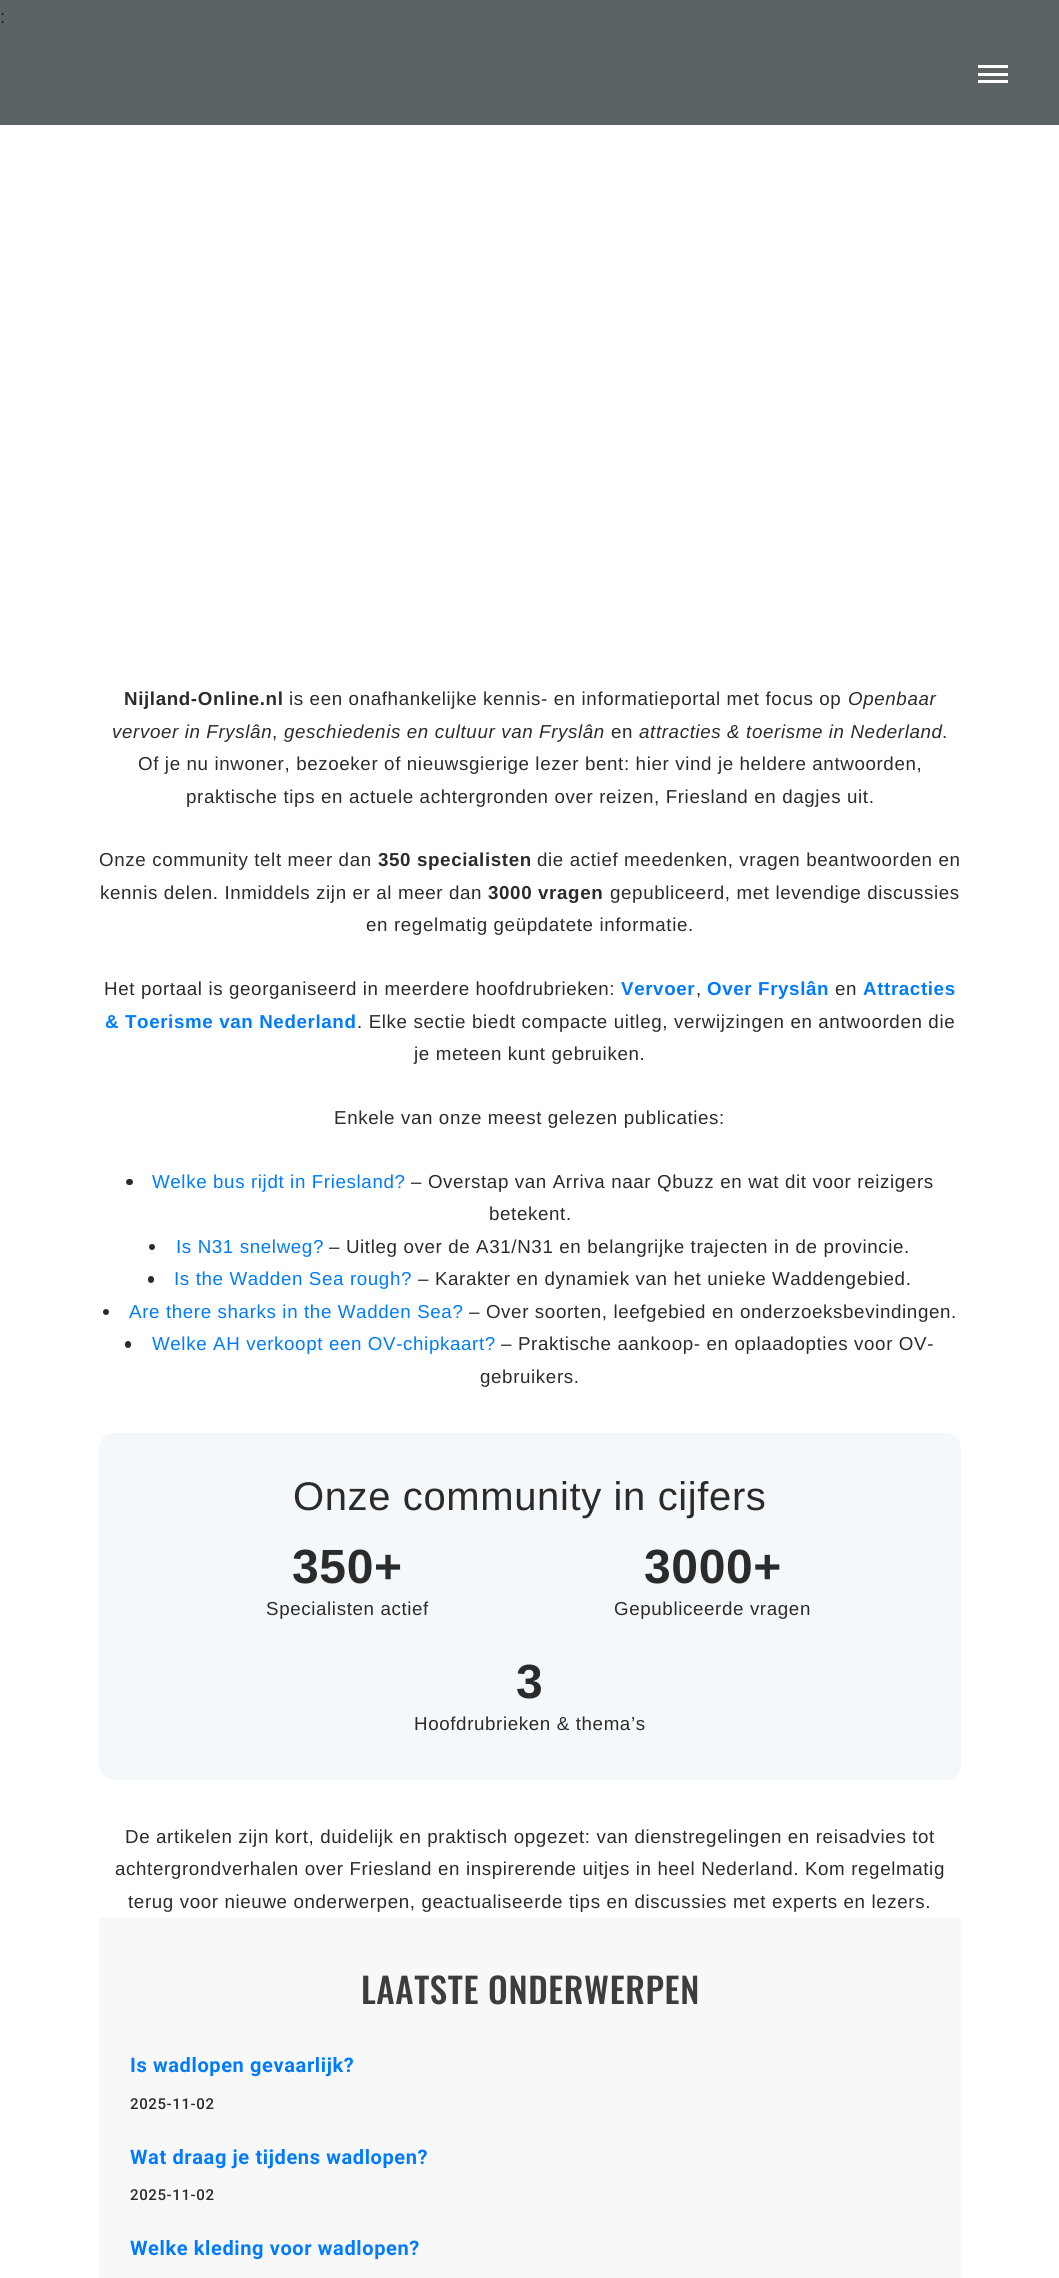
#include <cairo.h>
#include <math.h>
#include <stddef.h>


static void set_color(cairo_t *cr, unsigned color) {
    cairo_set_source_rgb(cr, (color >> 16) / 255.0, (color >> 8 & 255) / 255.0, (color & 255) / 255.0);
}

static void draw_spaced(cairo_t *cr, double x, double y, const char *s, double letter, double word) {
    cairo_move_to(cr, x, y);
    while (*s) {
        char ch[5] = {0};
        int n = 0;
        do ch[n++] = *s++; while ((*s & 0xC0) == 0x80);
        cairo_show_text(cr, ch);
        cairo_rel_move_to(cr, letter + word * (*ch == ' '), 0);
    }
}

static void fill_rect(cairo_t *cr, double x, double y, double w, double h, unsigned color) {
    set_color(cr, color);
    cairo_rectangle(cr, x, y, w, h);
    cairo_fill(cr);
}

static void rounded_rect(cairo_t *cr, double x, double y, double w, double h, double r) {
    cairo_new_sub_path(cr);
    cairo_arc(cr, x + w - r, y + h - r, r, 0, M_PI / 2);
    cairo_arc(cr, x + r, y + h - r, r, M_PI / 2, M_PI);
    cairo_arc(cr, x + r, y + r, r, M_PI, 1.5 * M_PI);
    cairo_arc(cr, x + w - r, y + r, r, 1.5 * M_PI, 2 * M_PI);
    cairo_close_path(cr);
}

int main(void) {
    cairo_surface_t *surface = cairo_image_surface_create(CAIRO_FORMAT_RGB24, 1059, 2278);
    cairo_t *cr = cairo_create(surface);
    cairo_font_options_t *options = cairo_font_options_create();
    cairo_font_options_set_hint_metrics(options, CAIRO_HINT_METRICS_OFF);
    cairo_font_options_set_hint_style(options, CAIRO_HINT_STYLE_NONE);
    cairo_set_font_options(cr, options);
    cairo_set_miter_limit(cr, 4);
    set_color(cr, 0xFFFFFF);
    cairo_paint(cr);
    fill_rect(cr, 0, 0, 1059, 125, 0x5B6364);
    cairo_select_font_face(cr, "Liberation Sans", CAIRO_FONT_SLANT_NORMAL, CAIRO_FONT_WEIGHT_NORMAL);
    cairo_set_font_size(cr, 18.75);
    set_color(cr, 0x1B2325);
    draw_spaced(cr, 0, 23, ":", 0.62, 0);
    fill_rect(cr, 978, 65, 30, 3, 0xFFFFFF);
    fill_rect(cr, 978, 73, 30, 3, 0xFFFFFF);
    fill_rect(cr, 978, 80, 30, 3, 0xFFFFFF);
    cairo_select_font_face(cr, "Liberation Sans", CAIRO_FONT_SLANT_NORMAL, CAIRO_FONT_WEIGHT_BOLD);
    set_color(cr, 0x2B2B2B);
    draw_spaced(cr, 124, 705, "Nijland-Online.nl", 0.62, 0);
    cairo_select_font_face(cr, "Liberation Sans", CAIRO_FONT_SLANT_NORMAL, CAIRO_FONT_WEIGHT_NORMAL);
    draw_spaced(cr, 289, 705, "is een onafhankelijke kennis- en informatieportal met focus op", 0.62, 0);
    cairo_select_font_face(cr, "Liberation Sans", CAIRO_FONT_SLANT_ITALIC, CAIRO_FONT_WEIGHT_NORMAL);
    draw_spaced(cr, 848, 705, "Openbaar", 0.62, 0);
    draw_spaced(cr, 112, 738, "vervoer in Fryslân", 0.62, 0);
    cairo_select_font_face(cr, "Liberation Sans", CAIRO_FONT_SLANT_NORMAL, CAIRO_FONT_WEIGHT_NORMAL);
    draw_spaced(cr, 272, 738, ",", 0.62, 0);
    cairo_select_font_face(cr, "Liberation Sans", CAIRO_FONT_SLANT_ITALIC, CAIRO_FONT_WEIGHT_NORMAL);
    draw_spaced(cr, 284, 738, "geschiedenis en cultuur van Fryslân", 0.62, 0);
    cairo_select_font_face(cr, "Liberation Sans", CAIRO_FONT_SLANT_NORMAL, CAIRO_FONT_WEIGHT_NORMAL);
    draw_spaced(cr, 611, 738, "en", 0.62, 0);
    cairo_select_font_face(cr, "Liberation Sans", CAIRO_FONT_SLANT_ITALIC, CAIRO_FONT_WEIGHT_NORMAL);
    draw_spaced(cr, 639, 738, "attracties & toerisme in Nederland", 0.62, 0);
    cairo_select_font_face(cr, "Liberation Sans", CAIRO_FONT_SLANT_NORMAL, CAIRO_FONT_WEIGHT_NORMAL);
    draw_spaced(cr, 942, 738, ".", 0.62, 0);
    draw_spaced(cr, 138, 770, "Of je nu inwoner, bezoeker of nieuwsgierige lezer bent: hier vind je heldere antwoorden,", 0.62, 0);
    draw_spaced(cr, 186, 803, "praktische tips en actuele achtergronden over reizen, Friesland en dagjes uit.", 0.62, 0);
    draw_spaced(cr, 99, 866, "Onze community telt meer dan", 0.62, 0);
    cairo_select_font_face(cr, "Liberation Sans", CAIRO_FONT_SLANT_NORMAL, CAIRO_FONT_WEIGHT_BOLD);
    draw_spaced(cr, 378, 866, "350 specialisten", 0.62, 0);
    cairo_select_font_face(cr, "Liberation Sans", CAIRO_FONT_SLANT_NORMAL, CAIRO_FONT_WEIGHT_NORMAL);
    draw_spaced(cr, 537, 866, "die actief meedenken, vragen beantwoorden en", 0.62, 0);
    draw_spaced(cr, 100, 899, "kennis delen. Inmiddels zijn er al meer dan", 0.62, 0);
    cairo_select_font_face(cr, "Liberation Sans", CAIRO_FONT_SLANT_NORMAL, CAIRO_FONT_WEIGHT_BOLD);
    draw_spaced(cr, 488, 899, "3000 vragen", 0.62, 0);
    cairo_select_font_face(cr, "Liberation Sans", CAIRO_FONT_SLANT_NORMAL, CAIRO_FONT_WEIGHT_NORMAL);
    draw_spaced(cr, 610, 899, "gepubliceerd, met levendige discussies", 0.62, 0);
    draw_spaced(cr, 366, 931, "en regelmatig geüpdatete informatie.", 0.62, 0);
    draw_spaced(cr, 104, 995, "Het portaal is georganiseerd in meerdere hoofdrubrieken:", 0.62, 0);
    cairo_select_font_face(cr, "Liberation Sans", CAIRO_FONT_SLANT_NORMAL, CAIRO_FONT_WEIGHT_BOLD);
    set_color(cr, 0x007BFF);
    draw_spaced(cr, 621, 995, "Vervoer", 0.62, 0);
    cairo_select_font_face(cr, "Liberation Sans", CAIRO_FONT_SLANT_NORMAL, CAIRO_FONT_WEIGHT_NORMAL);
    set_color(cr, 0x2B2B2B);
    draw_spaced(cr, 696, 995, ",", 0.62, 0);
    cairo_select_font_face(cr, "Liberation Sans", CAIRO_FONT_SLANT_NORMAL, CAIRO_FONT_WEIGHT_BOLD);
    set_color(cr, 0x007BFF);
    draw_spaced(cr, 707, 995, "Over Fryslân", 0.62, 0);
    cairo_select_font_face(cr, "Liberation Sans", CAIRO_FONT_SLANT_NORMAL, CAIRO_FONT_WEIGHT_NORMAL);
    set_color(cr, 0x2B2B2B);
    draw_spaced(cr, 835, 995, "en", 0.62, 0);
    cairo_select_font_face(cr, "Liberation Sans", CAIRO_FONT_SLANT_NORMAL, CAIRO_FONT_WEIGHT_BOLD);
    set_color(cr, 0x007BFF);
    draw_spaced(cr, 863, 995, "Attracties", 0.62, 0);
    draw_spaced(cr, 105, 1028, "& Toerisme van Nederland", 0.62, 0);
    cairo_select_font_face(cr, "Liberation Sans", CAIRO_FONT_SLANT_NORMAL, CAIRO_FONT_WEIGHT_NORMAL);
    set_color(cr, 0x2B2B2B);
    draw_spaced(cr, 357, 1028, ". Elke sectie biedt compacte uitleg, verwijzingen en antwoorden die", 0.62, 0);
    draw_spaced(cr, 414, 1060, "je meteen kunt gebruiken.", 0.62, 0);
    draw_spaced(cr, 334, 1124, "Enkele van onze meest gelezen publicaties:", 0.62, 0);
    rounded_rect(cr, 126, 1179, 7, 6, 3);
    cairo_fill(cr);
    set_color(cr, 0x007BFF);
    draw_spaced(cr, 152, 1188, "Welke bus rijdt in Friesland?", 0.62, 0);
    set_color(cr, 0x2B2B2B);
    draw_spaced(cr, 411, 1188, "– Overstap van Arriva naar Qbuzz en wat dit voor reizigers", 0.62, 0);
    draw_spaced(cr, 489, 1220, "betekent.", 0.62, 0);
    cairo_new_path(cr);
    cairo_arc(cr, 152, 1247, 3, 0, 2 * M_PI);
    cairo_fill(cr);
    set_color(cr, 0x007BFF);
    draw_spaced(cr, 176, 1253, "Is N31 snelweg?", 0.62, 0);
    set_color(cr, 0x2B2B2B);
    draw_spaced(cr, 329, 1253, "– Uitleg over de A31/N31 en belangrijke trajecten in de provincie.", 0.62, 0);
    rounded_rect(cr, 148, 1276, 6, 7, 3);
    cairo_fill(cr);
    set_color(cr, 0x007BFF);
    draw_spaced(cr, 174, 1285, "Is the Wadden Sea rough?", 0.62, 0);
    set_color(cr, 0x2B2B2B);
    draw_spaced(cr, 418, 1285, "– Karakter en dynamiek van het unieke Waddengebied.", 0.62, 0);
    cairo_new_path(cr);
    cairo_arc(cr, 106, 1312, 3, 0, 2 * M_PI);
    cairo_fill(cr);
    set_color(cr, 0x007BFF);
    draw_spaced(cr, 129, 1318, "Are there sharks in the Wadden Sea?", 0.62, 0);
    set_color(cr, 0x2B2B2B);
    draw_spaced(cr, 469, 1318, "– Over soorten, leefgebied en onderzoeksbevindingen.", 0.62, 0);
    rounded_rect(cr, 125, 1341, 6, 7, 3);
    cairo_fill(cr);
    set_color(cr, 0x007BFF);
    draw_spaced(cr, 152, 1350, "Welke AH verkoopt een OV-chipkaart?", 0.62, 0);
    set_color(cr, 0x2B2B2B);
    draw_spaced(cr, 501, 1350, "– Praktische aankoop- en oplaadopties voor OV-", 0.62, 0);
    draw_spaced(cr, 480, 1383, "gebruikers.", 0.62, 0);
    set_color(cr, 0xF4F8FA);
    rounded_rect(cr, 99, 1433, 862, 347, 15);
    cairo_fill(cr);
    cairo_set_font_size(cr, 40);
    set_color(cr, 0x2B2B2B);
    draw_spaced(cr, 293, 1510, "Onze community in cijfers", 0.62, 0);
    cairo_select_font_face(cr, "Liberation Sans", CAIRO_FONT_SLANT_NORMAL, CAIRO_FONT_WEIGHT_BOLD);
    cairo_set_font_size(cr, 48);
    draw_spaced(cr, 292, 1583, "350+", 0.62, 0);
    cairo_select_font_face(cr, "Liberation Sans", CAIRO_FONT_SLANT_NORMAL, CAIRO_FONT_WEIGHT_NORMAL);
    cairo_set_font_size(cr, 18.75);
    draw_spaced(cr, 266, 1615, "Specialisten actief", 0.62, 0);
    cairo_select_font_face(cr, "Liberation Sans", CAIRO_FONT_SLANT_NORMAL, CAIRO_FONT_WEIGHT_BOLD);
    cairo_set_font_size(cr, 48);
    draw_spaced(cr, 644, 1583, "3000+", 0.62, 0);
    cairo_select_font_face(cr, "Liberation Sans", CAIRO_FONT_SLANT_NORMAL, CAIRO_FONT_WEIGHT_NORMAL);
    cairo_set_font_size(cr, 18.75);
    draw_spaced(cr, 614, 1615, "Gepubliceerde vragen", 0.62, 0);
    cairo_select_font_face(cr, "Liberation Sans", CAIRO_FONT_SLANT_NORMAL, CAIRO_FONT_WEIGHT_BOLD);
    cairo_set_font_size(cr, 48);
    draw_spaced(cr, 516, 1698, "3", 0.62, 0);
    cairo_select_font_face(cr, "Liberation Sans", CAIRO_FONT_SLANT_NORMAL, CAIRO_FONT_WEIGHT_NORMAL);
    cairo_set_font_size(cr, 18.75);
    draw_spaced(cr, 414, 1730, "Hoofdrubrieken & thema’s", 0.62, 0);
    draw_spaced(cr, 125, 1843, "De artikelen zijn kort, duidelijk en praktisch opgezet: van dienstregelingen en reisadvies tot", 0.62, 0);
    draw_spaced(cr, 115, 1875, "achtergrondverhalen over Friesland en inspirerende uitjes in heel Nederland. Kom regelmatig", 0.62, 0);
    draw_spaced(cr, 128, 1908, "terug voor nieuwe onderwerpen, geactualiseerde tips en discussies met experts en lezers.", 0.62, 0);
    fill_rect(cr, 99, 1918, 862, 360, 0xF8F8F8);
    cairo_select_font_face(cr, "Oswald Medium", CAIRO_FONT_SLANT_NORMAL, CAIRO_FONT_WEIGHT_NORMAL);
    cairo_set_font_size(cr, 35);
    set_color(cr, 0x3D3D3D);
    draw_spaced(cr, 361, 2004, "LAATSTE ONDERWERPEN", 0.62, 0);
    cairo_select_font_face(cr, "Roboto", CAIRO_FONT_SLANT_NORMAL, CAIRO_FONT_WEIGHT_BOLD);
    cairo_set_font_size(cr, 20);
    set_color(cr, 0x007BFF);
    draw_spaced(cr, 130, 2072, "Is wadlopen gevaarlijk?", 0.62, 0);
    cairo_select_font_face(cr, "Roboto Medium", CAIRO_FONT_SLANT_NORMAL, CAIRO_FONT_WEIGHT_NORMAL);
    cairo_set_font_size(cr, 15);
    set_color(cr, 0x2B2B2B);
    draw_spaced(cr, 130, 2109, "2025-11-02", 0.62, 0);
    cairo_select_font_face(cr, "Roboto", CAIRO_FONT_SLANT_NORMAL, CAIRO_FONT_WEIGHT_BOLD);
    cairo_set_font_size(cr, 20);
    set_color(cr, 0x007BFF);
    draw_spaced(cr, 130, 2164, "Wat draag je tijdens wadlopen?", 0.62, 0);
    cairo_select_font_face(cr, "Roboto Medium", CAIRO_FONT_SLANT_NORMAL, CAIRO_FONT_WEIGHT_NORMAL);
    cairo_set_font_size(cr, 15);
    set_color(cr, 0x2B2B2B);
    draw_spaced(cr, 130, 2200, "2025-11-02", 0.62, 0);
    cairo_select_font_face(cr, "Roboto", CAIRO_FONT_SLANT_NORMAL, CAIRO_FONT_WEIGHT_BOLD);
    cairo_set_font_size(cr, 20);
    set_color(cr, 0x007BFF);
    draw_spaced(cr, 130, 2255, "Welke kleding voor wadlopen?", 0.62, 0);
    cairo_surface_write_to_png(surface, "output.png");
    cairo_font_options_destroy(options);
    cairo_destroy(cr);
    cairo_surface_destroy(surface);
    return 0;
}
